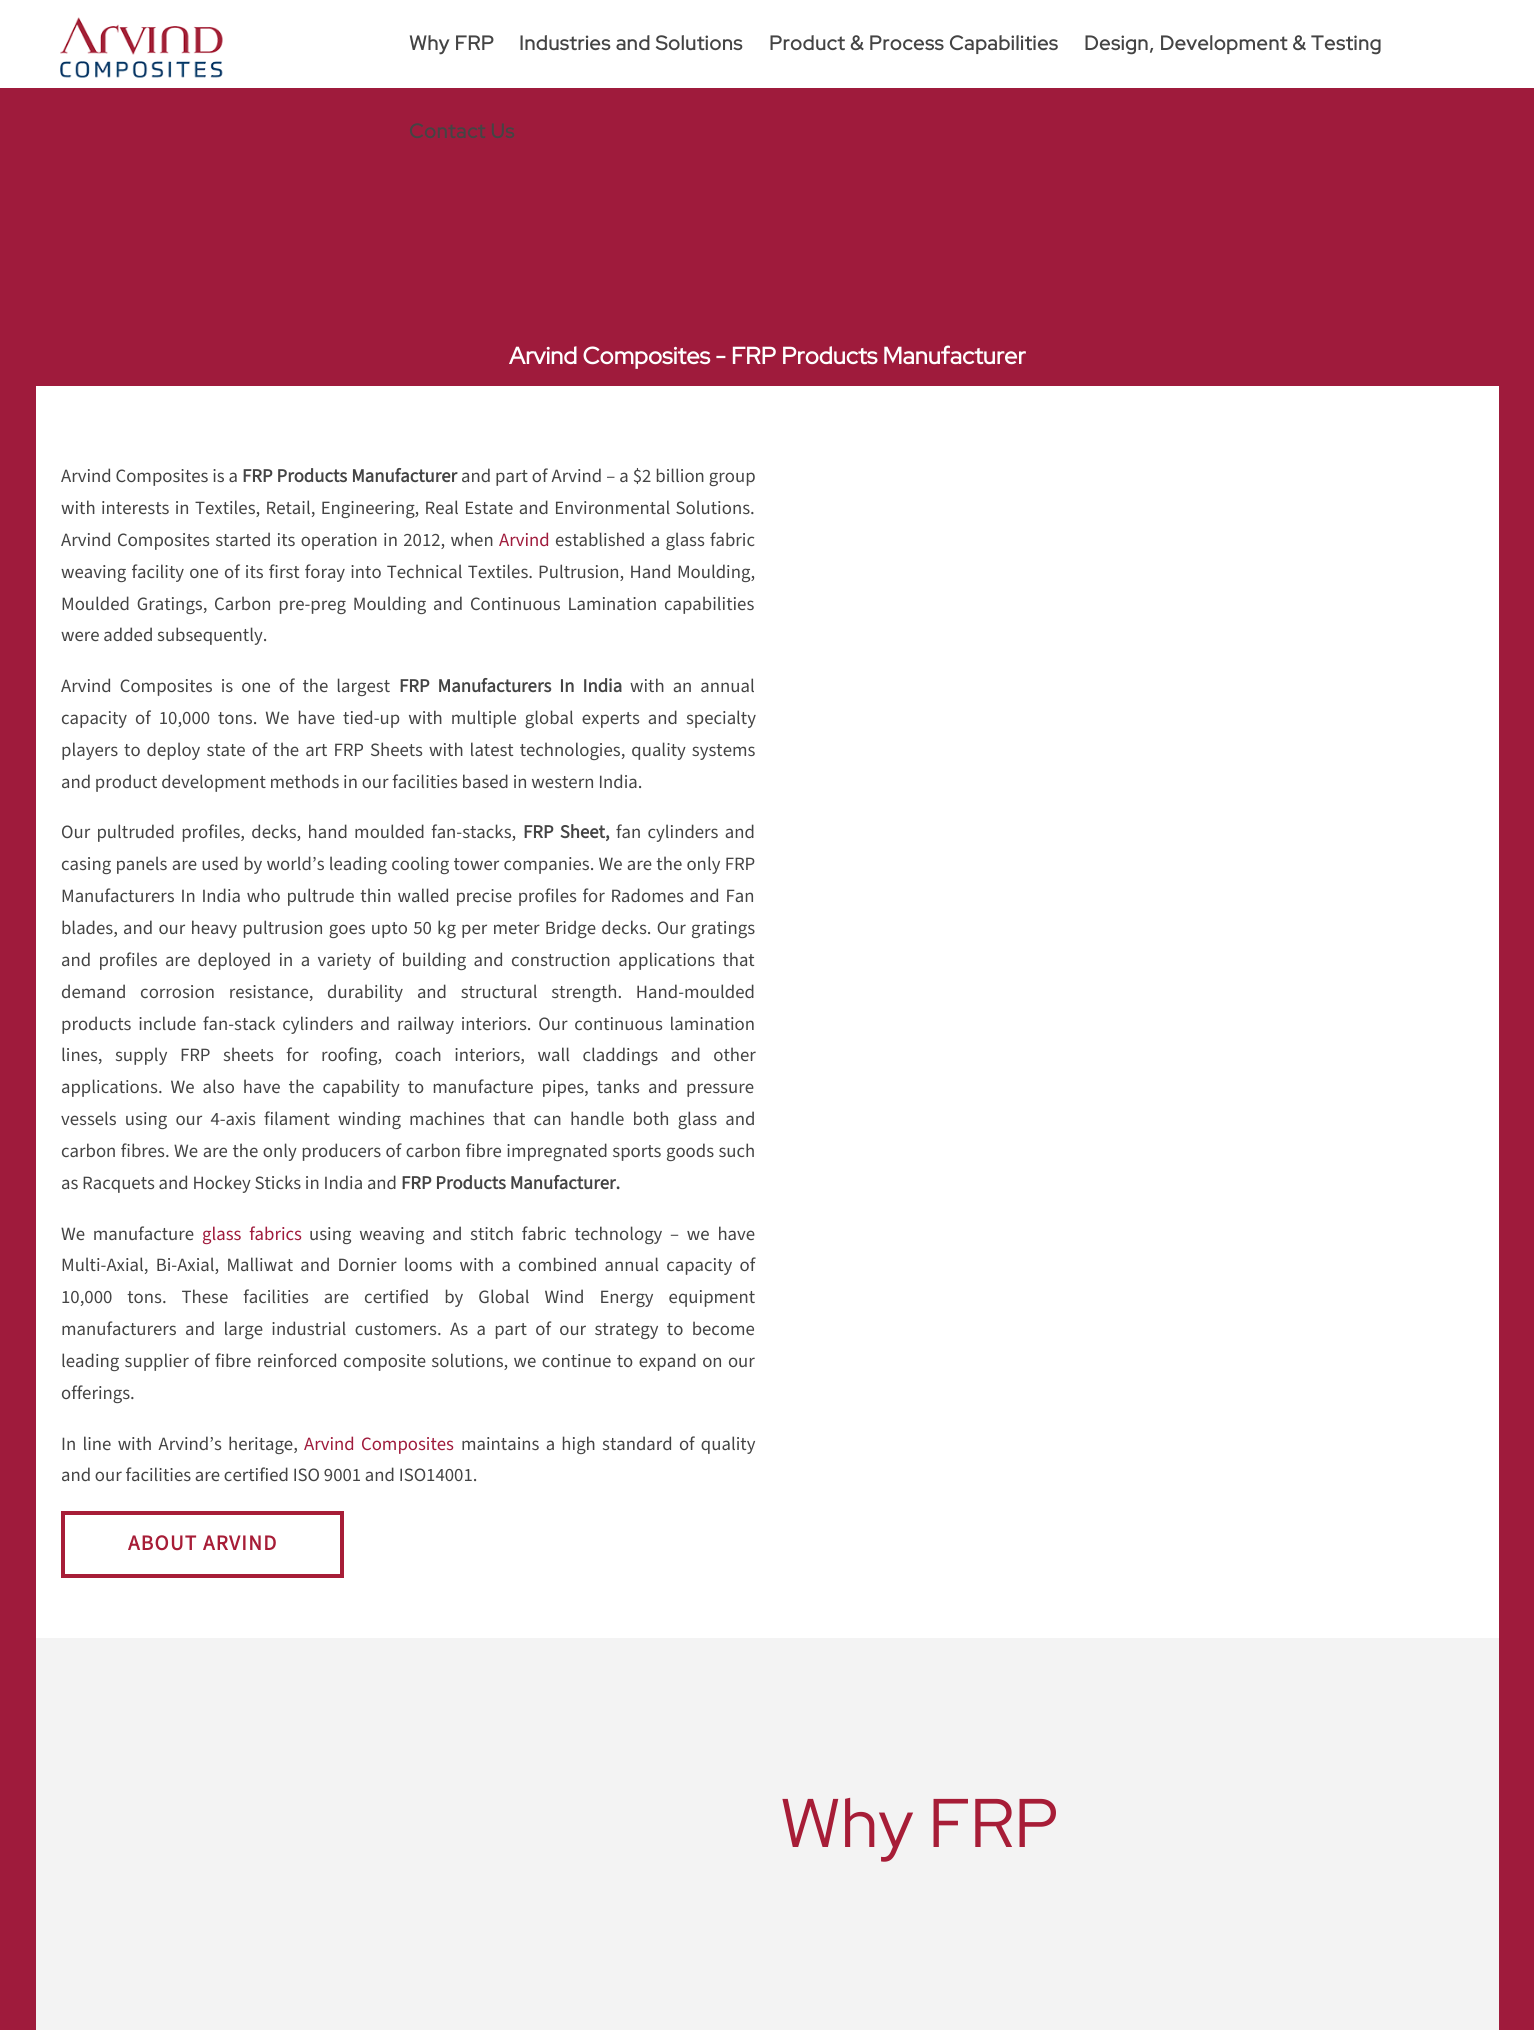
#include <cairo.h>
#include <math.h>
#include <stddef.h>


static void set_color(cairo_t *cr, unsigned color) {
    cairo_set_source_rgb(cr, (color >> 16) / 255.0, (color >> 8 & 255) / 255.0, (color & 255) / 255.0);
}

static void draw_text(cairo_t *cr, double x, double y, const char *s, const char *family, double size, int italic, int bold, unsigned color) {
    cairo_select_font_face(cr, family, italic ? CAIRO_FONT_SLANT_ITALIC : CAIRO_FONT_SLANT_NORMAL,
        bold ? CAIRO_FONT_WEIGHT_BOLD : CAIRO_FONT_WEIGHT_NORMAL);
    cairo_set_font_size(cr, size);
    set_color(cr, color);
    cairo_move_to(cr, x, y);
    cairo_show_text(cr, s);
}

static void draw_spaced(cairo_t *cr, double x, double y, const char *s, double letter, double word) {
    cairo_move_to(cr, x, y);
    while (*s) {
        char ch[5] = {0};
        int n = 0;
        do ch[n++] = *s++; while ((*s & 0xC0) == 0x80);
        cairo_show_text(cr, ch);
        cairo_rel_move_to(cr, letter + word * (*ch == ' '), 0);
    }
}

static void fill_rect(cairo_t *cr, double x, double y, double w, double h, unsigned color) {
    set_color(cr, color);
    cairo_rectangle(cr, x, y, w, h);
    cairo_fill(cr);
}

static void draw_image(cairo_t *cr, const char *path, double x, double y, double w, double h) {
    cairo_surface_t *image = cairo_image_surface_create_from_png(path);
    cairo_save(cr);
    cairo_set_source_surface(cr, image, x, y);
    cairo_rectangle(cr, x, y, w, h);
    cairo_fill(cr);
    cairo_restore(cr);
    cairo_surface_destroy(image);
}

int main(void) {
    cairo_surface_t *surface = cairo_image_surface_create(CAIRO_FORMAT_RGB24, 1534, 2030);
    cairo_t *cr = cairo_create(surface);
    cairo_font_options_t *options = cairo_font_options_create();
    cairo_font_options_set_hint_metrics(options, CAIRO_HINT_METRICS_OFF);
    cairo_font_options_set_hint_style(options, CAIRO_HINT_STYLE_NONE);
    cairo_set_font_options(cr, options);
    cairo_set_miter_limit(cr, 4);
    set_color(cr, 0x9F1B3C);
    cairo_paint(cr);
    fill_rect(cr, 0, 0, 1534, 88, 0xFFFFFF);
    draw_image(cr, "assets/img1.png", 60, 17, 163, 61);
    cairo_select_font_face(cr, "Red Hat Display", CAIRO_FONT_SLANT_NORMAL, CAIRO_FONT_WEIGHT_BOLD);
    cairo_set_font_size(cr, 20);
    set_color(cr, 0x444444);
    draw_spaced(cr, 409, 50, "Why FRP", 0.6, 0);
    draw_spaced(cr, 519, 50, "Industries and Solutions", 0.6, 0);
    draw_spaced(cr, 769, 50, "Product & Process Capabilities", 0.6, 0);
    draw_spaced(cr, 1084, 50, "Design, Development & Testing", 0.6, 0);
    draw_spaced(cr, 409, 138, "Contact Us", 0.6, 0);
    draw_text(cr, 509, 364, "Arvind Composites - FRP Products Manufacturer", "Red Hat Display", 23.75, 0, 1, 0xFFFFFF);
    fill_rect(cr, 36, 386, 1463, 1252, 0xFFFFFF);
    draw_text(cr, 61, 482, "Arvind Composites is a", "Source Sans 3", 18.75, 0, 0, 0x444444);
    cairo_select_font_face(cr, "Source Sans 3", CAIRO_FONT_SLANT_NORMAL, CAIRO_FONT_WEIGHT_BOLD);
    draw_spaced(cr, 242, 482, "FRP Products Manufacturer", 0, 0.25);
    cairo_select_font_face(cr, "Source Sans 3", CAIRO_FONT_SLANT_NORMAL, CAIRO_FONT_WEIGHT_NORMAL);
    draw_spaced(cr, 461, 482, "and part of Arvind – a $2 billion group", 0, 0.25);
    draw_spaced(cr, 61, 514, "with interests in Textiles, Retail, Engineering, Real Estate and Environmental Solutions.", 0, 1.6);
    draw_spaced(cr, 61, 546, "Arvind Composites started its operation in 2012, when", 0, 1.5);
    draw_text(cr, 499, 546, "Arvind", "Source Sans 3", 18.75, 0, 0, 0x9F1B3C);
    set_color(cr, 0x444444);
    draw_spaced(cr, 555, 546, "established a glass fabric", 0, 1.5);
    draw_spaced(cr, 61, 578, "weaving facility one of its first foray into Technical Textiles. Pultrusion, Hand Moulding,", 0, 1.4);
    draw_spaced(cr, 61, 610, "Moulded Gratings, Carbon pre-preg Moulding and Continuous Lamination capabilities", 0, 3);
    draw_text(cr, 61, 641, "were added subsequently.", "Source Sans 3", 18.75, 0, 0, 0x444444);
    draw_spaced(cr, 61, 692, "Arvind Composites is one of the largest", 0, 4.25);
    cairo_select_font_face(cr, "Source Sans 3", CAIRO_FONT_SLANT_NORMAL, CAIRO_FONT_WEIGHT_BOLD);
    draw_spaced(cr, 399, 692, "FRP Manufacturers In India", 0, 4.25);
    cairo_select_font_face(cr, "Source Sans 3", CAIRO_FONT_SLANT_NORMAL, CAIRO_FONT_WEIGHT_NORMAL);
    draw_spaced(cr, 630, 692, "with an annual", 0, 4.25);
    draw_spaced(cr, 61, 724, "capacity of 10,000 tons. We have tied-up with multiple global experts and specialty", 0, 4.25);
    draw_spaced(cr, 61, 756, "players to deploy state of the art FRP Sheets with latest technologies, quality systems", 0, 2.25);
    draw_text(cr, 61, 788, "and product development methods in our facilities based in western India.", "Source Sans 3", 18.75, 0, 0, 0x444444);
    draw_spaced(cr, 61, 838, "Our pultruded profiles, decks, hand moulded fan-stacks,", 0, 2.5);
    cairo_select_font_face(cr, "Source Sans 3", CAIRO_FONT_SLANT_NORMAL, CAIRO_FONT_WEIGHT_BOLD);
    draw_spaced(cr, 523, 838, "FRP Sheet,", 0, 2.5);
    cairo_select_font_face(cr, "Source Sans 3", CAIRO_FONT_SLANT_NORMAL, CAIRO_FONT_WEIGHT_NORMAL);
    draw_spaced(cr, 616, 838, "fan cylinders and", 0, 2.5);
    draw_spaced(cr, 61, 870, "casing panels are used by world’s leading cooling tower companies. We are the only FRP", 0, 0.5);
    draw_spaced(cr, 61, 902, "Manufacturers In India who pultrude thin walled precise profiles for Radomes and Fan", 0, 2);
    draw_spaced(cr, 61, 934, "blades, and our heavy pultrusion goes upto 50 kg per meter Bridge decks. Our gratings", 0, 1.5);
    draw_spaced(cr, 61, 966, "and profiles are deployed in a variety of building and construction applications that", 0, 3.6);
    draw_spaced(cr, 61, 998, "demand corrosion resistance, durability and structural strength. Hand-moulded", 0, 10);
    draw_spaced(cr, 61, 1030, "products include fan-stack cylinders and railway interiors. Our continuous lamination", 0, 3);
    draw_spaced(cr, 61, 1061, "lines, supply FRP sheets for roofing, coach interiors, wall claddings and other", 0, 8.75);
    draw_spaced(cr, 61, 1093, "applications. We also have the capability to manufacture pipes, tanks and pressure", 0, 4.25);
    draw_spaced(cr, 61, 1125, "vessels using our 4-axis filament winding machines that can handle both glass and", 0, 4.4);
    draw_spaced(cr, 61, 1157, "carbon fibres. We are the only producers of carbon fibre impregnated sports goods such", 0, 0.75);
    draw_text(cr, 61, 1189, "as Racquets and Hockey Sticks in India and", "Source Sans 3", 18.75, 0, 0, 0x444444);
    draw_text(cr, 401, 1189, "FRP Products Manufacturer.", "Source Sans 3", 18.75, 0, 1, 0x444444);
    cairo_select_font_face(cr, "Source Sans 3", CAIRO_FONT_SLANT_NORMAL, CAIRO_FONT_WEIGHT_NORMAL);
    draw_spaced(cr, 61, 1240, "We manufacture", 0, 4);
    set_color(cr, 0x9F1B3C);
    draw_spaced(cr, 202, 1240, "glass fabrics", 0, 4);
    set_color(cr, 0x444444);
    draw_spaced(cr, 309, 1240, "using weaving and stitch fabric technology – we have", 0, 4);
    draw_spaced(cr, 61, 1271, "Multi-Axial, Bi-Axial, Malliwat and Dornier looms with a combined annual capacity of", 0, 3.5);
    draw_spaced(cr, 61, 1303, "10,000 tons. These facilities are certified by Global Wind Energy equipment", 0, 11.25);
    draw_spaced(cr, 61, 1335, "manufacturers and large industrial customers. As a part of our strategy to become", 0, 4.6);
    draw_spaced(cr, 61, 1367, "leading supplier of fibre reinforced composite solutions, we continue to expand on our", 0, 1.6);
    draw_text(cr, 61, 1399, "offerings.", "Source Sans 3", 18.75, 0, 0, 0x444444);
    draw_spaced(cr, 61, 1450, "In line with Arvind’s heritage,", 0, 2.5);
    set_color(cr, 0x9F1B3C);
    draw_spaced(cr, 304, 1450, "Arvind Composites", 0, 2.5);
    set_color(cr, 0x444444);
    draw_spaced(cr, 461, 1450, "maintains a high standard of quality", 0, 2.5);
    draw_text(cr, 61, 1481, "and our facilities are certified ISO 9001 and ISO14001.", "Source Sans 3", 18.75, 0, 0, 0x444444);
    cairo_rectangle(cr, 63, 1513, 279, 63);
    set_color(cr, 0xA71D37);
    cairo_set_line_width(cr, 4);
    cairo_stroke(cr);
    cairo_select_font_face(cr, "Source Sans 3", CAIRO_FONT_SLANT_NORMAL, CAIRO_FONT_WEIGHT_BOLD);
    cairo_set_font_size(cr, 21.25);
    draw_spaced(cr, 128, 1550, "ABOUT ARVIND", 1.25, 0);
    fill_rect(cr, 36, 1638, 1463, 392, 0xF3F3F3);
    draw_text(cr, 780, 1847, "Why FRP", "Red Hat Display", 68.75, 0, 0, 0xA71D37);
    cairo_surface_write_to_png(surface, "output.png");
    cairo_font_options_destroy(options);
    cairo_destroy(cr);
    cairo_surface_destroy(surface);
    return 0;
}
